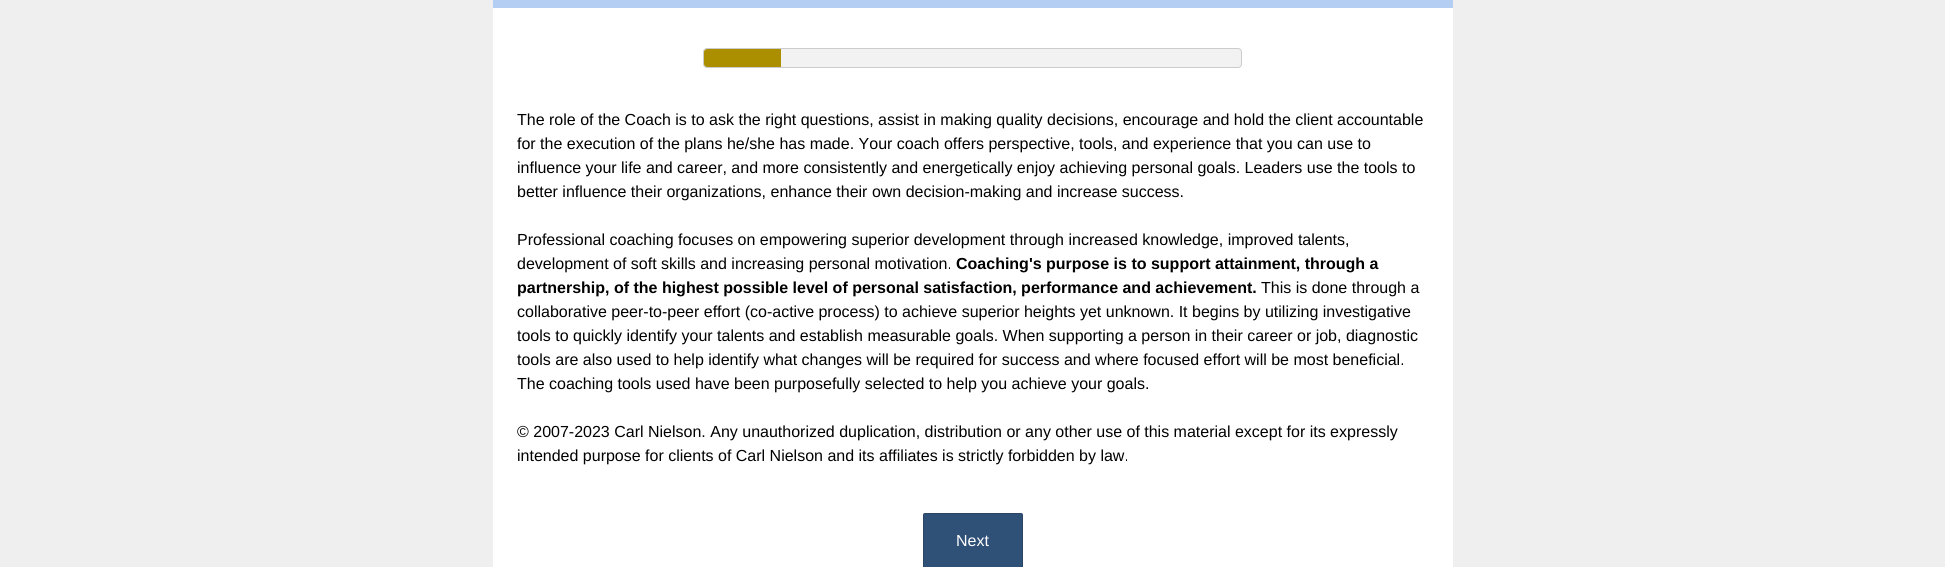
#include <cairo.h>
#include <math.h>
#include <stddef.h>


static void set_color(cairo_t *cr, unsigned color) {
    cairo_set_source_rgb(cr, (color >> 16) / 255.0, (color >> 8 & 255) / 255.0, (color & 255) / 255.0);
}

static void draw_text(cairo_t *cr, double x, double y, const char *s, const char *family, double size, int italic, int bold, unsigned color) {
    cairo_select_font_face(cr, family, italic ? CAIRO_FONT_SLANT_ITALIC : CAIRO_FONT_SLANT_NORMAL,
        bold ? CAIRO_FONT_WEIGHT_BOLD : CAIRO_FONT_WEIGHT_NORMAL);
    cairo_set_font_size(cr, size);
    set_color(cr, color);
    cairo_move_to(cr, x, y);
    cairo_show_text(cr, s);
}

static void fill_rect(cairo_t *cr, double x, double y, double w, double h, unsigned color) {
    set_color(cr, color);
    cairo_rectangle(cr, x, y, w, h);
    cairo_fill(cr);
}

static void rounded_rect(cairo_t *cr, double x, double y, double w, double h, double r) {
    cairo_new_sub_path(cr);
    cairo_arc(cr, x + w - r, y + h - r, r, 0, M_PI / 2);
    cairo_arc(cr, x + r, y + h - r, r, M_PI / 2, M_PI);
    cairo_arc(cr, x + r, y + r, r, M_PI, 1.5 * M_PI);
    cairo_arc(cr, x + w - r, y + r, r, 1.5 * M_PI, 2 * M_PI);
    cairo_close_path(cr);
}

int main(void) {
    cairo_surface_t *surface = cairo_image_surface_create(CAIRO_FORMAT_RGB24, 1945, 567);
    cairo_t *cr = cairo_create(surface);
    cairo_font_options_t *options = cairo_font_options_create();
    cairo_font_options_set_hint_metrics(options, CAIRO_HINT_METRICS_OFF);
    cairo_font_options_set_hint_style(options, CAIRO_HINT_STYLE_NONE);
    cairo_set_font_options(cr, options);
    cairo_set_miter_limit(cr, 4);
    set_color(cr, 0xEFEFEF);
    cairo_paint(cr);
    fill_rect(cr, 493, 8, 960, 559, 0xFFFFFF);
    fill_rect(cr, 493, 0, 960, 8, 0xB3CDF3);
    set_color(cr, 0xF2F2F2);
    rounded_rect(cr, 703.5, 48.5, 538, 19, 3.5);
    cairo_fill_preserve(cr);
    set_color(cr, 0xCCCCCC);
    cairo_set_line_width(cr, 1);
    cairo_stroke(cr);
    set_color(cr, 0xAC8F00);
    cairo_new_path(cr);
    cairo_move_to(cr, 707, 49);
    cairo_line_to(cr, 781, 49);
    cairo_line_to(cr, 781, 67);
    cairo_line_to(cr, 707, 67);
    cairo_curve_to(cr, 705.5, 67, 704, 65.5, 704, 64);
    cairo_line_to(cr, 704, 52);
    cairo_curve_to(cr, 704, 50.5, 705.5, 49, 707, 49);
    cairo_close_path(cr);
    cairo_fill(cr);
    draw_text(cr, 517, 125, "The role of the Coach is to ask the right questions, assist in making quality decisions, encourage and hold the client accountable", "Liberation Sans", 16, 0, 0, 0x000000);
    draw_text(cr, 517, 149, "for the execution of the plans he/she has made. Your coach offers perspective, tools, and experience that you can use to", "Liberation Sans", 16, 0, 0, 0x000000);
    draw_text(cr, 517, 173, "influence your life and career, and more consistently and energetically enjoy achieving personal goals. Leaders use the tools to", "Liberation Sans", 16, 0, 0, 0x000000);
    draw_text(cr, 517, 197, "better influence their organizations, enhance their own decision-making and increase success.", "Liberation Sans", 16, 0, 0, 0x000000);
    draw_text(cr, 517, 245, "Professional coaching focuses on empowering superior development through increased knowledge, improved talents,", "Liberation Sans", 16, 0, 0, 0x000000);
    draw_text(cr, 517, 269, "development of soft skills and increasing personal motivation.", "Liberation Sans", 16, 0, 0, 0x000000);
    draw_text(cr, 956, 269, "Coaching's purpose is to support attainment, through a", "Liberation Sans", 16, 0, 1, 0x000000);
    draw_text(cr, 517, 293, "partnership, of the highest possible level of personal satisfaction, performance and achievement.", "Liberation Sans", 16, 0, 1, 0x000000);
    draw_text(cr, 1261, 293, "This is done through a", "Liberation Sans", 16, 0, 0, 0x000000);
    draw_text(cr, 517, 317, "collaborative peer-to-peer effort (co-active process) to achieve superior heights yet unknown. It begins by utilizing investigative", "Liberation Sans", 16, 0, 0, 0x000000);
    draw_text(cr, 517, 341, "tools to quickly identify your talents and establish measurable goals. When supporting a person in their career or job, diagnostic", "Liberation Sans", 16, 0, 0, 0x000000);
    draw_text(cr, 517, 365, "tools are also used to help identify what changes will be required for success and where focused effort will be most beneficial.", "Liberation Sans", 16, 0, 0, 0x000000);
    draw_text(cr, 517, 389, "The coaching tools used have been purposefully selected to help you achieve your goals.", "Liberation Sans", 16, 0, 0, 0x000000);
    draw_text(cr, 517, 437, "© 2007-2023 Carl Nielson. Any unauthorized duplication, distribution or any other use of this material except for its expressly", "Liberation Sans", 16, 0, 0, 0x000000);
    draw_text(cr, 517, 461, "intended purpose for clients of Carl Nielson and its affiliates is strictly forbidden by law.", "Liberation Sans", 16, 0, 0, 0x000000);
    set_color(cr, 0x2F5077);
    rounded_rect(cr, 923, 513, 100, 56, 2);
    cairo_fill(cr);
    rounded_rect(cr, 923.5, 513.5, 99, 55, 1.5);
    cairo_set_source_rgba(cr, 0.102, 0.102, 0.102, 0.2);
    cairo_stroke(cr);
    draw_text(cr, 956, 546, "Next", "Liberation Sans", 16, 0, 0, 0xFFFFFF);
    cairo_surface_write_to_png(surface, "output.png");
    cairo_font_options_destroy(options);
    cairo_destroy(cr);
    cairo_surface_destroy(surface);
    return 0;
}
